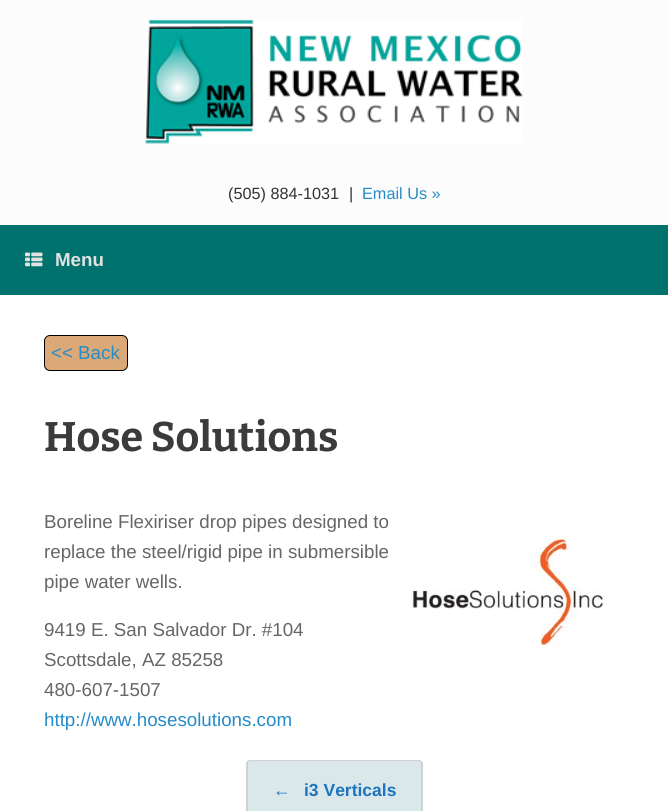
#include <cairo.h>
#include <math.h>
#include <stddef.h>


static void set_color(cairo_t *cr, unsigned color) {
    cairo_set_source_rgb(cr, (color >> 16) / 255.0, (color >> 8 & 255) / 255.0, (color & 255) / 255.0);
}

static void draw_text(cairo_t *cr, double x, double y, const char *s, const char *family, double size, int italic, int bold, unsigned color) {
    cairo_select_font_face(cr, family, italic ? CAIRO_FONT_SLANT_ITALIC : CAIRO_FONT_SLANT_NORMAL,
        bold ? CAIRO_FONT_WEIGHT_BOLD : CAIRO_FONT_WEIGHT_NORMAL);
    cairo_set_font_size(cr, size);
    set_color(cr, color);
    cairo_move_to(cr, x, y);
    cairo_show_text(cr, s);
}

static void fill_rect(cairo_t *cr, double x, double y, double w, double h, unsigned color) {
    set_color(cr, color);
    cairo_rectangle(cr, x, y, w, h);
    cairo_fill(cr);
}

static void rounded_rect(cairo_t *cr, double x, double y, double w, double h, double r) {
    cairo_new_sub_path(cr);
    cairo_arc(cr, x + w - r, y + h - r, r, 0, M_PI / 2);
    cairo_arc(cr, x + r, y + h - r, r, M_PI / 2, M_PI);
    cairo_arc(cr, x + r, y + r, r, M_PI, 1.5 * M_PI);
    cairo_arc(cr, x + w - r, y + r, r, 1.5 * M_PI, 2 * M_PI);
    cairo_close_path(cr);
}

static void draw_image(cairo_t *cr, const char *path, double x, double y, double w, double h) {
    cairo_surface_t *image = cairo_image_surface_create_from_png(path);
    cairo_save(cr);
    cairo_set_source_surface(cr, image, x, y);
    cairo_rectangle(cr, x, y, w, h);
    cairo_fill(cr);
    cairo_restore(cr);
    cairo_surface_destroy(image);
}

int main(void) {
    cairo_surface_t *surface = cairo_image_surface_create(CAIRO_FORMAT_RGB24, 668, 811);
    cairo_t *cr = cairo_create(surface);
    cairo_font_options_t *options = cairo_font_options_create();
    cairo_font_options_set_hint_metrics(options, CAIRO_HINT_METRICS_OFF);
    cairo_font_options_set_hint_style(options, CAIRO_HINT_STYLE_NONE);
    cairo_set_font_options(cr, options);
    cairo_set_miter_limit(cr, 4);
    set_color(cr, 0xFCFCFC);
    cairo_paint(cr);
    draw_image(cr, "assets/img1.png", 145, 19, 378, 125);
    draw_text(cr, 228, 199, "(505) 884-1031", "Liberation Sans", 16.25, 0, 0, 0x333333);
    draw_text(cr, 349, 199, "|", "Liberation Sans", 16.25, 0, 0, 0x333333);
    draw_text(cr, 362, 199, "Email Us »", "Liberation Sans", 16.25, 0, 0, 0x248CC8);
    fill_rect(cr, 0, 225, 668, 70, 0x00726D);
    draw_image(cr, "assets/img2.png", 25, 252, 18, 15);
    draw_text(cr, 55, 266, "Menu", "Liberation Sans", 18.75, 0, 1, 0xE2E2E2);
    fill_rect(cr, 0, 295, 668, 516, 0xFFFFFF);
    set_color(cr, 0xDBA978);
    rounded_rect(cr, 44.5, 335.5, 83, 35, 5.5);
    cairo_fill_preserve(cr);
    set_color(cr, 0x000000);
    cairo_set_line_width(cr, 1);
    cairo_stroke(cr);
    draw_text(cr, 51, 359, "<< Back", "Liberation Sans", 18.75, 0, 0, 0x248CC8);
    draw_text(cr, 44, 451, "Hose Solutions", "Bitter", 41.25, 0, 1, 0x3B3B3B);
    draw_text(cr, 44, 528, "Boreline Flexiriser drop pipes designed to", "Liberation Sans", 18.75, 0, 0, 0x666666);
    draw_text(cr, 44, 558, "replace the steel/rigid pipe in submersible", "Liberation Sans", 18.75, 0, 0, 0x666666);
    draw_text(cr, 44, 588, "pipe water wells.", "Liberation Sans", 18.75, 0, 0, 0x666666);
    draw_text(cr, 44, 636, "9419 E. San Salvador Dr. #104", "Liberation Sans", 18.75, 0, 0, 0x666666);
    draw_text(cr, 44, 666, "Scottsdale, AZ 85258", "Liberation Sans", 18.75, 0, 0, 0x666666);
    draw_text(cr, 44, 696, "480-607-1507", "Liberation Sans", 18.75, 0, 0, 0x666666);
    draw_text(cr, 44, 726, "http://www.hosesolutions.com", "Liberation Sans", 18.75, 0, 0, 0x248CC8);
    draw_image(cr, "assets/img3.png", 411, 534, 193, 112);
    set_color(cr, 0xDAE8EA);
    rounded_rect(cr, 246, 760, 177, 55, 4);
    cairo_fill(cr);
    cairo_save(cr);
    cairo_rectangle(cr, 44, 760, 581, 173);
    cairo_clip(cr);
    cairo_new_path(cr);
    cairo_move_to(cr, 248, 761.5);
    cairo_line_to(cr, 250, 760.5);
    cairo_line_to(cr, 419, 760.5);
    cairo_line_to(cr, 421, 761.5);
    set_color(cr, 0xD2D2D2);
    cairo_set_line_width(cr, 1.2);
    cairo_stroke(cr);
    cairo_restore(cr);
    cairo_new_path(cr);
    cairo_move_to(cr, 421, 761.5);
    cairo_line_to(cr, 422, 763.5);
    cairo_line_to(cr, 422, 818);
    cairo_line_to(cr, 421, 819.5);
    set_color(cr, 0xC3C3C3);
    cairo_set_line_width(cr, 1.2);
    cairo_stroke(cr);
    cairo_new_path(cr);
    cairo_move_to(cr, 248, 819.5);
    cairo_line_to(cr, 247, 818);
    cairo_line_to(cr, 247, 763.5);
    cairo_line_to(cr, 248, 761.5);
    cairo_stroke(cr);
    draw_text(cr, 273, 796, "←", "Liberation Sans", 17.5, 0, 1, 0x1E73BE);
    draw_text(cr, 304, 796, "i3 Verticals", "Liberation Sans", 17.5, 0, 1, 0x1E73BE);
    cairo_surface_write_to_png(surface, "output.png");
    cairo_font_options_destroy(options);
    cairo_destroy(cr);
    cairo_surface_destroy(surface);
    return 0;
}
